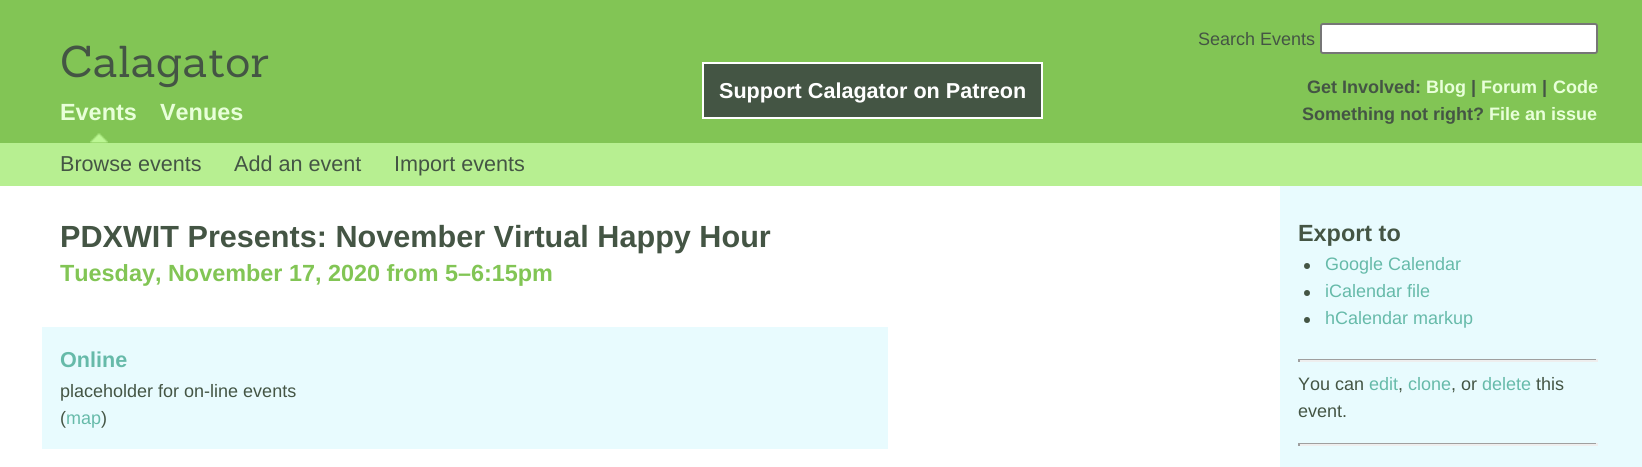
#include <cairo.h>
#include <math.h>
#include <stddef.h>


static void set_color(cairo_t *cr, unsigned color) {
    cairo_set_source_rgb(cr, (color >> 16) / 255.0, (color >> 8 & 255) / 255.0, (color & 255) / 255.0);
}

static void draw_text(cairo_t *cr, double x, double y, const char *s, const char *family, double size, int italic, int bold, unsigned color) {
    cairo_select_font_face(cr, family, italic ? CAIRO_FONT_SLANT_ITALIC : CAIRO_FONT_SLANT_NORMAL,
        bold ? CAIRO_FONT_WEIGHT_BOLD : CAIRO_FONT_WEIGHT_NORMAL);
    cairo_set_font_size(cr, size);
    set_color(cr, color);
    cairo_move_to(cr, x, y);
    cairo_show_text(cr, s);
}

static void fill_rect(cairo_t *cr, double x, double y, double w, double h, unsigned color) {
    set_color(cr, color);
    cairo_rectangle(cr, x, y, w, h);
    cairo_fill(cr);
}

static void rounded_rect(cairo_t *cr, double x, double y, double w, double h, double r) {
    cairo_new_sub_path(cr);
    cairo_arc(cr, x + w - r, y + h - r, r, 0, M_PI / 2);
    cairo_arc(cr, x + r, y + h - r, r, M_PI / 2, M_PI);
    cairo_arc(cr, x + r, y + r, r, M_PI, 1.5 * M_PI);
    cairo_arc(cr, x + w - r, y + r, r, 1.5 * M_PI, 2 * M_PI);
    cairo_close_path(cr);
}

static void draw_image(cairo_t *cr, const char *path, double x, double y, double w, double h) {
    cairo_surface_t *image = cairo_image_surface_create_from_png(path);
    cairo_save(cr);
    cairo_set_source_surface(cr, image, x, y);
    cairo_rectangle(cr, x, y, w, h);
    cairo_fill(cr);
    cairo_restore(cr);
    cairo_surface_destroy(image);
}

int main(void) {
    cairo_surface_t *surface = cairo_image_surface_create(CAIRO_FORMAT_RGB24, 1642, 467);
    cairo_t *cr = cairo_create(surface);
    cairo_font_options_t *options = cairo_font_options_create();
    cairo_font_options_set_hint_metrics(options, CAIRO_HINT_METRICS_OFF);
    cairo_font_options_set_hint_style(options, CAIRO_HINT_STYLE_NONE);
    cairo_set_font_options(cr, options);
    cairo_set_miter_limit(cr, 4);
    set_color(cr, 0xFFFFFF);
    cairo_paint(cr);
    fill_rect(cr, 0, 0, 1642, 143, 0x82C555);
    draw_text(cr, 1198, 45, "Search Events", "Liberation Sans", 18, 0, 0, 0x445544);
    set_color(cr, 0xFFFFFF);
    rounded_rect(cr, 1321, 24, 276, 29, 2);
    cairo_fill_preserve(cr);
    set_color(cr, 0x767676);
    cairo_stroke(cr);
    draw_image(cr, "assets/img1.png", 90, 133, 18, 10);
    draw_text(cr, 60, 120, "Events", "Liberation Sans", 23.4, 0, 1, 0xE8FFD9);
    draw_text(cr, 160, 120, "Venues", "Liberation Sans", 23.4, 0, 1, 0xE8FFD9);
    draw_text(cr, 1307, 93, "Get Involved:", "Liberation Sans", 18, 0, 1, 0x445544);
    draw_text(cr, 1426, 93, "Blog", "Liberation Sans", 18, 0, 1, 0xE8FFD9);
    draw_text(cr, 1471, 93, "|", "Liberation Sans", 18, 0, 1, 0x445544);
    draw_text(cr, 1481, 93, "Forum", "Liberation Sans", 18, 0, 1, 0xE8FFD9);
    draw_text(cr, 1542, 93, "|", "Liberation Sans", 18, 0, 1, 0x445544);
    draw_text(cr, 1553, 93, "Code", "Liberation Sans", 18, 0, 1, 0xE8FFD9);
    draw_text(cr, 1302, 120, "Something not right?", "Liberation Sans", 18, 0, 1, 0x445544);
    draw_text(cr, 1489, 120, "File an issue", "Liberation Sans", 18, 0, 1, 0xE8FFD9);
    draw_text(cr, 60, 77, "Calagator", "Sanchez", 43.5, 0, 0, 0x445544);
    cairo_rectangle(cr, 703, 63, 339, 55);
    cairo_fill_preserve(cr);
    set_color(cr, 0xFFFFFF);
    cairo_stroke(cr);
    draw_text(cr, 719, 98, "Support Calagator on Patreon", "Liberation Sans", 21.6, 0, 1, 0xFFFFFF);
    fill_rect(cr, 0, 143, 1642, 43, 0xB7EF91);
    draw_text(cr, 60, 171, "Browse events", "Liberation Sans", 21.6, 0, 0, 0x445544);
    draw_text(cr, 234, 171, "Add an event", "Liberation Sans", 21.6, 0, 0, 0x445544);
    draw_text(cr, 394, 171, "Import events", "Liberation Sans", 21.6, 0, 0, 0x445544);
    draw_text(cr, 60, 247, "PDXWIT Presents: November Virtual Happy Hour", "Liberation Sans", 30.6, 0, 1, 0x445544);
    draw_text(cr, 60, 281, "Tuesday, November 17, 2020 from 5–6:15pm", "Liberation Sans", 23.4, 0, 1, 0x82C555);
    fill_rect(cr, 42, 327, 846, 122, 0xE8FBFE);
    draw_text(cr, 60, 367, "Online", "Liberation Sans", 21.6, 0, 1, 0x66BAA9);
    draw_text(cr, 60, 397, "placeholder for on-line events", "Liberation Sans", 18, 0, 0, 0x445544);
    draw_text(cr, 60, 424, "(", "Liberation Sans", 18, 0, 0, 0x445544);
    draw_text(cr, 66, 424, "map", "Liberation Sans", 18, 0, 0, 0x66BAA9);
    draw_text(cr, 101, 424, ")", "Liberation Sans", 18, 0, 0, 0x445544);
    fill_rect(cr, 1280, 186, 362, 281, 0xE8FBFE);
    draw_text(cr, 1298, 241, "Export to", "Liberation Sans", 23.4, 0, 1, 0x445544);
    cairo_new_path(cr);
    cairo_arc(cr, 1307, 266, 3, 0, 2 * M_PI);
    cairo_fill(cr);
    draw_text(cr, 1325, 270, "Google Calendar", "Liberation Sans", 18, 0, 0, 0x66BAA9);
    set_color(cr, 0x445544);
    cairo_new_path(cr);
    cairo_arc(cr, 1307, 293, 3, 0, 2 * M_PI);
    cairo_fill(cr);
    draw_text(cr, 1325, 297, "iCalendar file", "Liberation Sans", 18, 0, 0, 0x66BAA9);
    set_color(cr, 0x445544);
    cairo_new_path(cr);
    cairo_arc(cr, 1307, 320, 3, 0, 2 * M_PI);
    cairo_fill(cr);
    draw_text(cr, 1325, 324, "hCalendar markup", "Liberation Sans", 18, 0, 0, 0x66BAA9);
    fill_rect(cr, 1298, 359, 300, 1, 0x9F9F9F);
    fill_rect(cr, 1596, 359, 2, 3, 0xEEEEEE);
    fill_rect(cr, 1298, 360, 300, 2, 0xEEEEEE);
    fill_rect(cr, 1298, 359, 2, 3, 0x9F9F9F);
    draw_text(cr, 1298, 390, "You can", "Liberation Sans", 18, 0, 0, 0x445544);
    draw_text(cr, 1369, 390, "edit", "Liberation Sans", 18, 0, 0, 0x66BAA9);
    draw_text(cr, 1398, 390, ",", "Liberation Sans", 18, 0, 0, 0x445544);
    draw_text(cr, 1408, 390, "clone", "Liberation Sans", 18, 0, 0, 0x66BAA9);
    draw_text(cr, 1451, 390, ", or", "Liberation Sans", 18, 0, 0, 0x445544);
    draw_text(cr, 1482, 390, "delete", "Liberation Sans", 18, 0, 0, 0x66BAA9);
    draw_text(cr, 1536, 390, "this", "Liberation Sans", 18, 0, 0, 0x445544);
    draw_text(cr, 1298, 417, "event.", "Liberation Sans", 18, 0, 0, 0x445544);
    fill_rect(cr, 1298, 443, 300, 1, 0x9F9F9F);
    fill_rect(cr, 1596, 443, 2, 3, 0xEEEEEE);
    fill_rect(cr, 1298, 444, 300, 2, 0xEEEEEE);
    fill_rect(cr, 1298, 443, 2, 3, 0x9F9F9F);
    cairo_surface_write_to_png(surface, "output.png");
    cairo_font_options_destroy(options);
    cairo_destroy(cr);
    cairo_surface_destroy(surface);
    return 0;
}
